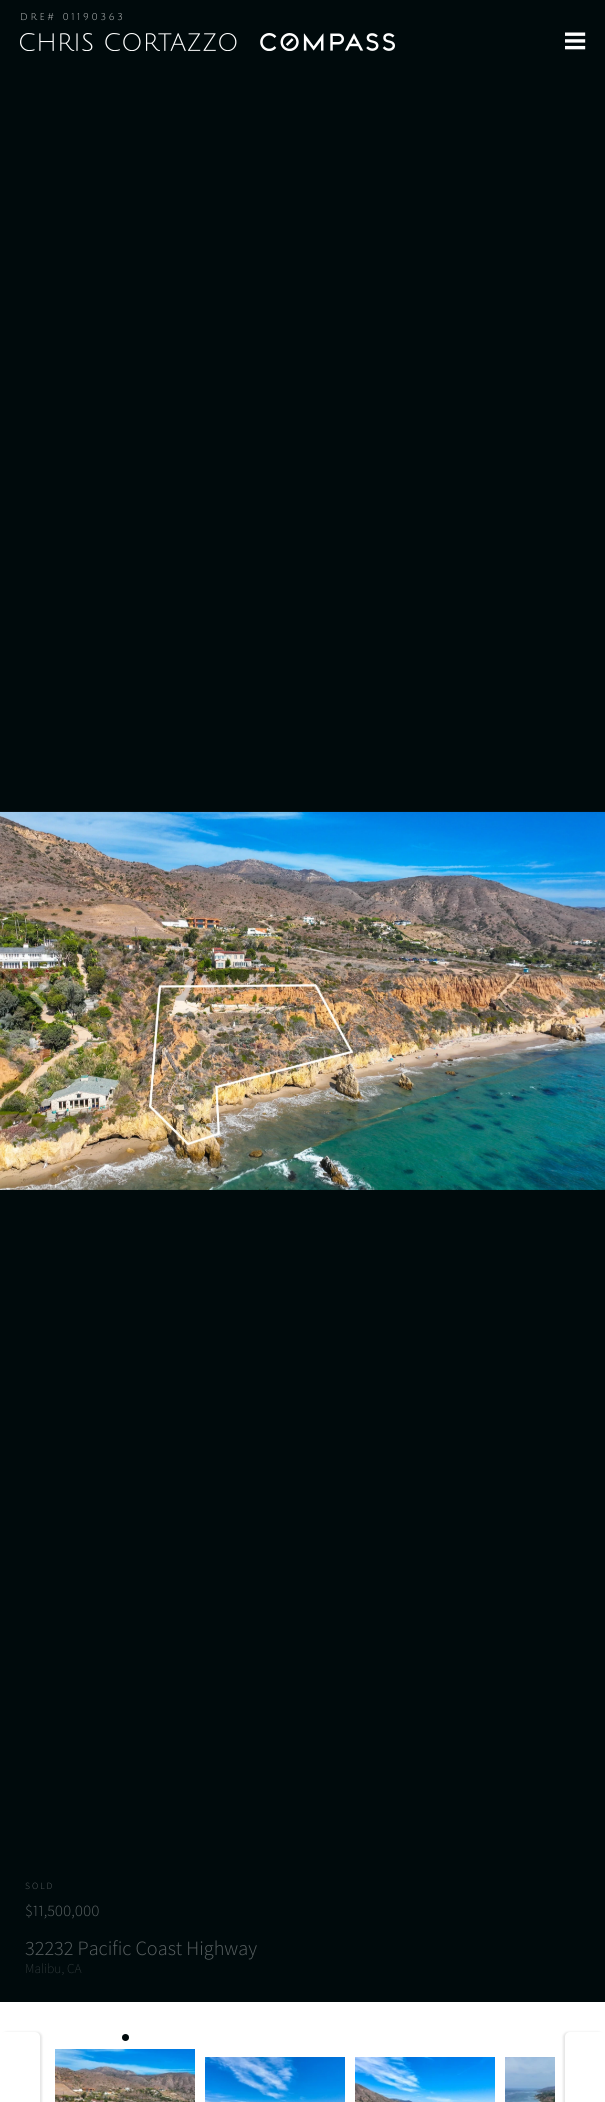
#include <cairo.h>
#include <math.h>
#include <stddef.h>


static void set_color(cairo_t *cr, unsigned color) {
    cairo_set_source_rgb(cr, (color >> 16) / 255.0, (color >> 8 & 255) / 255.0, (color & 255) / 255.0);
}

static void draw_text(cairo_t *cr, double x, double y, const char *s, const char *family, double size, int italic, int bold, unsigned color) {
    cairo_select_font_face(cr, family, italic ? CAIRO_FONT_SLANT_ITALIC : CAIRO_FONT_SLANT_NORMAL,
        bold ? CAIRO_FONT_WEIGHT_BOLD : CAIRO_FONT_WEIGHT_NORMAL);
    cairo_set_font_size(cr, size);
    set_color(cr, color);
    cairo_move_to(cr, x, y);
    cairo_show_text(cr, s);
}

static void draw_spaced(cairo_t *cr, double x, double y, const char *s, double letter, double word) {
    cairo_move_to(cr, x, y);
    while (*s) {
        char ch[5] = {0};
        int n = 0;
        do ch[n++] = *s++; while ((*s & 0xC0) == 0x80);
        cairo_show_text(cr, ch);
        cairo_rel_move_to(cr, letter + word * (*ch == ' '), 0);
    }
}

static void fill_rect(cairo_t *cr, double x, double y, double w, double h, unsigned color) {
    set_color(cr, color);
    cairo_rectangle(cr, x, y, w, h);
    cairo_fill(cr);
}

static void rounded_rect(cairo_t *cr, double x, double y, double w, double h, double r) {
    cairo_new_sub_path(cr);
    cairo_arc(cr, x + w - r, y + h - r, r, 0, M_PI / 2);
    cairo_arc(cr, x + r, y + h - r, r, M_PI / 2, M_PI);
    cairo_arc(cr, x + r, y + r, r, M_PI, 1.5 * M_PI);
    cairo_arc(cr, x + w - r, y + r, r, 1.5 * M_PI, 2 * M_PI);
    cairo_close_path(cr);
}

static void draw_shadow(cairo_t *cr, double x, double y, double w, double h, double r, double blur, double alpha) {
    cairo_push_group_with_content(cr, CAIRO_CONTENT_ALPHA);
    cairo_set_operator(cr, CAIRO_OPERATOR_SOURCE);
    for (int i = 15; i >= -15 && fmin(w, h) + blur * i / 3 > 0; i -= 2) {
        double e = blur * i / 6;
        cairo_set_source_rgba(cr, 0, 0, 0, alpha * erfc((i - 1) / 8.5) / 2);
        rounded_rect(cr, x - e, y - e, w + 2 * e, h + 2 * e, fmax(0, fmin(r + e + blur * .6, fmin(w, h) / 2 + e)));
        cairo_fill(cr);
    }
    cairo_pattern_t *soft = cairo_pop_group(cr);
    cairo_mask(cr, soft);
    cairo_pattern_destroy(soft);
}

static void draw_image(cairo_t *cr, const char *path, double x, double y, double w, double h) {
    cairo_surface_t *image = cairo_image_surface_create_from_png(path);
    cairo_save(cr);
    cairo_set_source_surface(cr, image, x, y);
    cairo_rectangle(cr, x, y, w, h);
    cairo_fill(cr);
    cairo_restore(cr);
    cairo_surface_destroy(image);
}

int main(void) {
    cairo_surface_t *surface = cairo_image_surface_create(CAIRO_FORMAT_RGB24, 605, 2102);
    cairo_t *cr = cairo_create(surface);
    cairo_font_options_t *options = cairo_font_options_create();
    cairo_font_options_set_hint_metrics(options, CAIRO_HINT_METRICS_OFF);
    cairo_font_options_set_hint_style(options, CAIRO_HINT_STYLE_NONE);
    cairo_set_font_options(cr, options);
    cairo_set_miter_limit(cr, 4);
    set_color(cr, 0x000A0C);
    cairo_paint(cr);
    cairo_select_font_face(cr, "Julius Sans One", CAIRO_FONT_SLANT_NORMAL, CAIRO_FONT_WEIGHT_NORMAL);
    cairo_set_font_size(cr, 9.6);
    set_color(cr, 0xCCCECE);
    draw_spaced(cr, 20, 20, "DRE# 01190363", 2.7, 0);
    draw_image(cr, "assets/img1.png", 20, 33, 375, 18);
    draw_image(cr, "assets/img2.png", 565, 32, 21, 18);
    draw_image(cr, "assets/img3.png", 0, 811, 605, 379);
    cairo_set_source_rgba(cr, 1, 1, 1, 0.35);
    cairo_new_path(cr);
    cairo_move_to(cr, 45, 980.5);
    cairo_line_to(cr, 49, 984.5);
    cairo_line_to(cr, 37, 996);
    cairo_line_to(cr, 49, 1008);
    cairo_line_to(cr, 45, 1011.5);
    cairo_line_to(cr, 29.5, 996);
    cairo_close_path(cr);
    cairo_fill(cr);
    cairo_new_path(cr);
    cairo_move_to(cr, 558.5, 1011.5);
    cairo_line_to(cr, 555, 1008);
    cairo_line_to(cr, 567, 996);
    cairo_line_to(cr, 555, 984.5);
    cairo_line_to(cr, 558.5, 980.5);
    cairo_line_to(cr, 574, 996);
    cairo_close_path(cr);
    cairo_fill(cr);
    cairo_select_font_face(cr, "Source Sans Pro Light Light", CAIRO_FONT_SLANT_NORMAL, CAIRO_FONT_WEIGHT_NORMAL);
    cairo_set_font_size(cr, 9.5);
    set_color(cr, 0x596061);
    draw_spaced(cr, 25, 1889, "SOLD", 2, 0);
    draw_text(cr, 25, 1916, "$11,500,000", "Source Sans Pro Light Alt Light", 16, 0, 0, 0x596061);
    draw_text(cr, 25, 1955, "32232 Pacific Coast Highway", "Source Sans Pro Light Light", 20.25, 0, 0, 0x596061);
    draw_text(cr, 25, 1973, "Malibu, CA", "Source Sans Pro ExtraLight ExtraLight", 13.5, 0, 0, 0x3A4243);
    fill_rect(cr, 0, 2002, 605, 100, 0xFFFFFF);
    set_color(cr, 0x808080);
    draw_shadow(cr, 2, 2032, 40, 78, 5, 1, 0.2);
    set_color(cr, 0xFFFFFF);
    rounded_rect(cr, 0, 2032, 40, 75, 5);
    cairo_fill(cr);
    set_color(cr, 0x000A0C);
    cairo_arc(cr, 125.5, 2037.5, 3.5, 0, 2 * M_PI);
    cairo_fill(cr);
    draw_image(cr, "assets/img4.png", 55, 2049, 140, 53);
    draw_image(cr, "assets/img5.png", 205, 2057, 140, 45);
    draw_image(cr, "assets/img6.png", 355, 2057, 140, 45);
    draw_image(cr, "assets/img7.png", 505, 2057, 50, 45);
    set_color(cr, 0x808080);
    draw_shadow(cr, 563, 2032, 40, 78, 5, 1, 0.2);
    set_color(cr, 0xFFFFFF);
    rounded_rect(cr, 565, 2032, 40, 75, 5);
    cairo_fill(cr);
    cairo_surface_write_to_png(surface, "output.png");
    cairo_font_options_destroy(options);
    cairo_destroy(cr);
    cairo_surface_destroy(surface);
    return 0;
}
